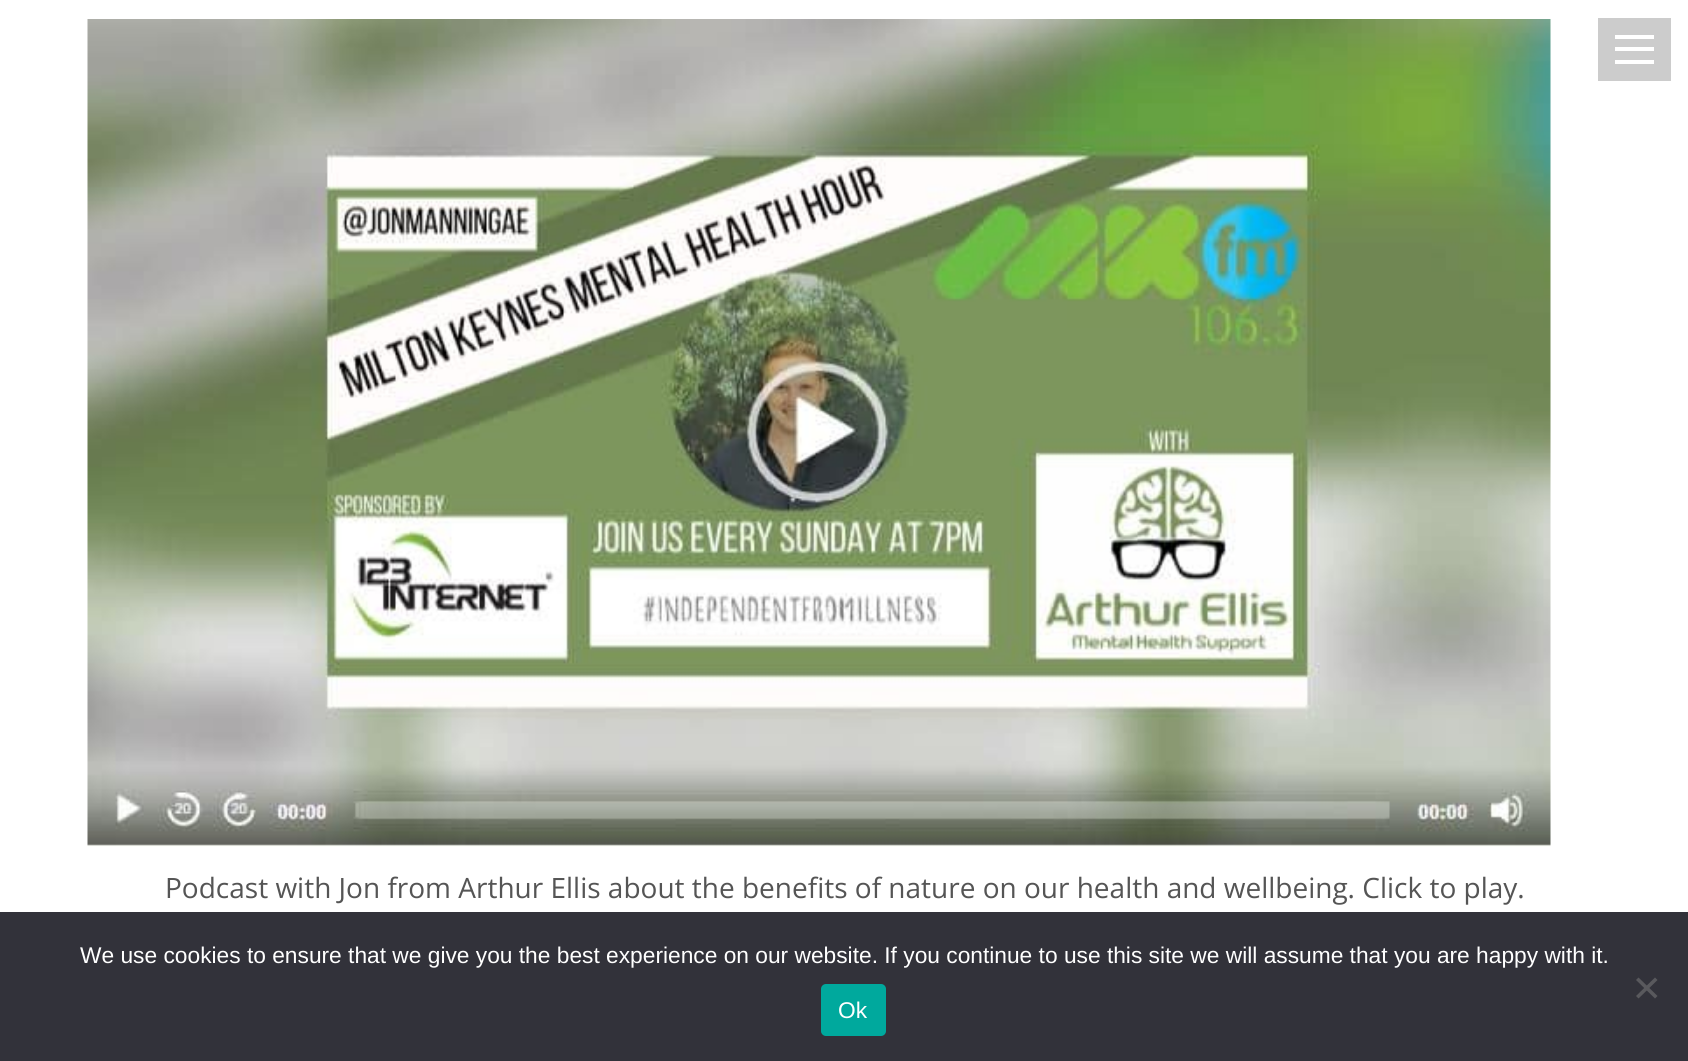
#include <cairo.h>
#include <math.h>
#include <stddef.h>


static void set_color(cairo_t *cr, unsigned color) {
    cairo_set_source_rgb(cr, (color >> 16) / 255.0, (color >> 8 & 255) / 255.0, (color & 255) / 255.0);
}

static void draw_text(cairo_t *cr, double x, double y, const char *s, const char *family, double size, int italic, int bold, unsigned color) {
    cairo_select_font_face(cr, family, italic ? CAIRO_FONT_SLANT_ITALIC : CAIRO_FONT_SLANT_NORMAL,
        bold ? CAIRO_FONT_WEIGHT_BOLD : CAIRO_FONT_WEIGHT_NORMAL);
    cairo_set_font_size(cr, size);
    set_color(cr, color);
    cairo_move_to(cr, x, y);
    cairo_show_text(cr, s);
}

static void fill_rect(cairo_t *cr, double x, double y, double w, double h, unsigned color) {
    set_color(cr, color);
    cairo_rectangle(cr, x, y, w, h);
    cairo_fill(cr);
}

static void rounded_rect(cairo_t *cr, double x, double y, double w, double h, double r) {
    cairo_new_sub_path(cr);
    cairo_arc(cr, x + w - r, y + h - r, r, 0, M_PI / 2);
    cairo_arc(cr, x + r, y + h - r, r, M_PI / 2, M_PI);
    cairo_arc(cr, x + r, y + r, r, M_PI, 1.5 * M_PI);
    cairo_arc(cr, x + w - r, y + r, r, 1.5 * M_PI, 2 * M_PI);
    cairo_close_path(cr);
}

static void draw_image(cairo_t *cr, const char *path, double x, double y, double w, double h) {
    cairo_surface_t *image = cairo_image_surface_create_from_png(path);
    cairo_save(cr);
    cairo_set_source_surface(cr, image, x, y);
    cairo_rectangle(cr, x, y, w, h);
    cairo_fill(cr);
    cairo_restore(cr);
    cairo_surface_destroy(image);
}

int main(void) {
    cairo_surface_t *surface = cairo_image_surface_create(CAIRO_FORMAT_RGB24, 1688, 1061);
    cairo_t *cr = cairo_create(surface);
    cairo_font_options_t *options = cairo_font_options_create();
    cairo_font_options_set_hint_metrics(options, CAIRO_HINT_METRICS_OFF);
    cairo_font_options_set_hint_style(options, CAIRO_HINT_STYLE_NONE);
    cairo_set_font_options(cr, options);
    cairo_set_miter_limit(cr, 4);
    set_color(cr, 0xFFFFFF);
    cairo_paint(cr);
    fill_rect(cr, 1598, 18, 73, 63, 0xCCCCCC);
    fill_rect(cr, 1615, 35, 39, 4, 0xFFFFFF);
    fill_rect(cr, 1615, 47, 39, 4, 0xFFFFFF);
    fill_rect(cr, 1615, 60, 39, 4, 0xFFFFFF);
    draw_image(cr, "assets/img1.png", 87, 19, 1464, 828);
    draw_text(cr, 165, 898, "Podcast with Jon from Arthur Ellis about the benefits of nature on our health and wellbeing. Click to play.", "Open Sans", 28, 0, 0, 0x555555);
    fill_rect(cr, 0, 912, 1688, 149, 0x32323A);
    draw_text(cr, 80, 963, "We use cookies to ensure that we give you the best experience on our website. If you continue to use this site we will assume that you are happy with it.", "Liberation Sans", 22.75, 0, 0, 0xFFFFFF);
    set_color(cr, 0x59595D);
    cairo_new_path(cr);
    cairo_move_to(cr, 1655, 977.5);
    cairo_line_to(cr, 1657.5, 980);
    cairo_line_to(cr, 1638.5, 998.5);
    cairo_line_to(cr, 1636, 996);
    cairo_close_path(cr);
    cairo_fill(cr);
    cairo_new_path(cr);
    cairo_move_to(cr, 1636, 980);
    cairo_line_to(cr, 1638.5, 977.5);
    cairo_line_to(cr, 1657.5, 996);
    cairo_line_to(cr, 1655, 998.5);
    cairo_close_path(cr);
    cairo_fill(cr);
    set_color(cr, 0x00A99D);
    rounded_rect(cr, 821, 984, 65, 52, 5);
    cairo_fill(cr);
    draw_text(cr, 838, 1018, "Ok", "Liberation Sans", 22.75, 0, 0, 0xFFFFFF);
    cairo_surface_write_to_png(surface, "output.png");
    cairo_font_options_destroy(options);
    cairo_destroy(cr);
    cairo_surface_destroy(surface);
    return 0;
}
